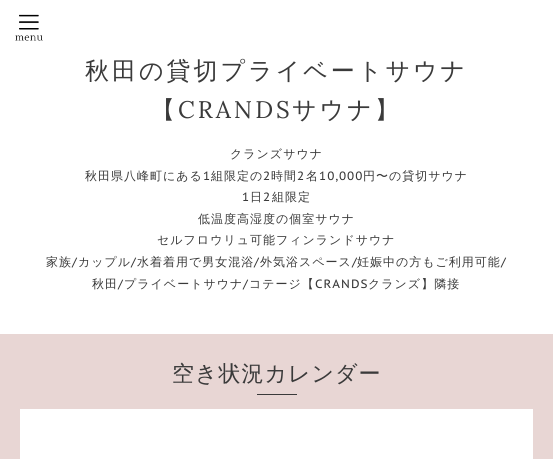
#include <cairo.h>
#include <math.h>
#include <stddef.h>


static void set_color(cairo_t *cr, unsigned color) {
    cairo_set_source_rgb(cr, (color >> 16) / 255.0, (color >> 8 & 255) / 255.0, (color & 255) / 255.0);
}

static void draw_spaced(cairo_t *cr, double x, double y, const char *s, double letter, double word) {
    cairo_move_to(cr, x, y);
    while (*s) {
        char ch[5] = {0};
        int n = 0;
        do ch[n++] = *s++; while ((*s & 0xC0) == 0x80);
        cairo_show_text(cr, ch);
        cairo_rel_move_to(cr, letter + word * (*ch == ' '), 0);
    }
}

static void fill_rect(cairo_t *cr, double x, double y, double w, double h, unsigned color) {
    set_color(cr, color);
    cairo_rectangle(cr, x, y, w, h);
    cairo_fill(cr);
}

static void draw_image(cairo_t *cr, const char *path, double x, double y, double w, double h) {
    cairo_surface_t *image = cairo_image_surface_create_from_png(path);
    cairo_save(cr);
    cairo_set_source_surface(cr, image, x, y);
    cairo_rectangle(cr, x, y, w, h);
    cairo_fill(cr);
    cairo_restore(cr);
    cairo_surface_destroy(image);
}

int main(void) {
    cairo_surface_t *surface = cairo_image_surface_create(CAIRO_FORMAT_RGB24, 553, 459);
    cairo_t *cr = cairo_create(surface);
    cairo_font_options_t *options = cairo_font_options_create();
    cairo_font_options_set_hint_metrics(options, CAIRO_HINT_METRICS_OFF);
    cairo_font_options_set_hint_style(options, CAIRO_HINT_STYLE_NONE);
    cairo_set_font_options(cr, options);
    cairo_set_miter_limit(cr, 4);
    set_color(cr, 0xFFFFFF);
    cairo_paint(cr);
    draw_image(cr, "assets/img1.png", 15, 14, 28, 27);
    cairo_select_font_face(cr, "WenQuanYi Zen Hei Medium", CAIRO_FONT_SLANT_NORMAL, CAIRO_FONT_WEIGHT_NORMAL);
    cairo_set_font_size(cr, 24);
    set_color(cr, 0x3A3A3A);
    draw_spaced(cr, 85, 79, "秋田の貸切プライベートサウナ", 3, 0);
    draw_spaced(cr, 151, 118, "【", 3, 0);
    cairo_select_font_face(cr, "Lora", CAIRO_FONT_SLANT_NORMAL, CAIRO_FONT_WEIGHT_NORMAL);
    draw_spaced(cr, 178, 118, "CRANDS", 3, 0);
    cairo_select_font_face(cr, "WenQuanYi Zen Hei Medium", CAIRO_FONT_SLANT_NORMAL, CAIRO_FONT_WEIGHT_NORMAL);
    draw_spaced(cr, 292, 118, "サウナ】", 3, 0);
    cairo_set_font_size(cr, 12);
    draw_spaced(cr, 230, 158, "クランズサウナ", 1, 0);
    draw_spaced(cr, 85, 180, "秋田県八峰町にある", 1, 0);
    cairo_select_font_face(cr, "PT Sans Caption", CAIRO_FONT_SLANT_NORMAL, CAIRO_FONT_WEIGHT_NORMAL);
    draw_spaced(cr, 203, 180, "1", 1, 0);
    cairo_select_font_face(cr, "WenQuanYi Zen Hei Medium", CAIRO_FONT_SLANT_NORMAL, CAIRO_FONT_WEIGHT_NORMAL);
    draw_spaced(cr, 211, 180, "組限定の", 1, 0);
    cairo_select_font_face(cr, "PT Sans Caption", CAIRO_FONT_SLANT_NORMAL, CAIRO_FONT_WEIGHT_NORMAL);
    draw_spaced(cr, 263, 180, "2", 1, 0);
    cairo_select_font_face(cr, "WenQuanYi Zen Hei Medium", CAIRO_FONT_SLANT_NORMAL, CAIRO_FONT_WEIGHT_NORMAL);
    draw_spaced(cr, 271, 180, "時間", 1, 0);
    cairo_select_font_face(cr, "PT Sans Caption", CAIRO_FONT_SLANT_NORMAL, CAIRO_FONT_WEIGHT_NORMAL);
    draw_spaced(cr, 297, 180, "2", 1, 0);
    cairo_select_font_face(cr, "WenQuanYi Zen Hei Medium", CAIRO_FONT_SLANT_NORMAL, CAIRO_FONT_WEIGHT_NORMAL);
    draw_spaced(cr, 306, 180, "名", 1, 0);
    cairo_select_font_face(cr, "PT Sans Caption", CAIRO_FONT_SLANT_NORMAL, CAIRO_FONT_WEIGHT_NORMAL);
    draw_spaced(cr, 319, 180, "10,000", 1, 0);
    cairo_select_font_face(cr, "WenQuanYi Zen Hei Medium", CAIRO_FONT_SLANT_NORMAL, CAIRO_FONT_WEIGHT_NORMAL);
    draw_spaced(cr, 363, 180, "円〜の貸切サウナ", 1, 0);
    cairo_select_font_face(cr, "PT Sans Caption", CAIRO_FONT_SLANT_NORMAL, CAIRO_FONT_WEIGHT_NORMAL);
    draw_spaced(cr, 242, 201, "1", 1, 0);
    cairo_select_font_face(cr, "WenQuanYi Zen Hei Medium", CAIRO_FONT_SLANT_NORMAL, CAIRO_FONT_WEIGHT_NORMAL);
    draw_spaced(cr, 250, 201, "日", 1, 0);
    cairo_select_font_face(cr, "PT Sans Caption", CAIRO_FONT_SLANT_NORMAL, CAIRO_FONT_WEIGHT_NORMAL);
    draw_spaced(cr, 263, 201, "2", 1, 0);
    cairo_select_font_face(cr, "WenQuanYi Zen Hei Medium", CAIRO_FONT_SLANT_NORMAL, CAIRO_FONT_WEIGHT_NORMAL);
    draw_spaced(cr, 272, 201, "組限定", 1, 0);
    draw_spaced(cr, 198, 223, "低温度高湿度の個室サウナ", 1, 0);
    draw_spaced(cr, 157, 244, "セルフロウリュ可能フィンランドサウナ", 1, 0);
    draw_spaced(cr, 46, 266, "家族", 1, 0);
    cairo_select_font_face(cr, "PT Sans Caption", CAIRO_FONT_SLANT_NORMAL, CAIRO_FONT_WEIGHT_NORMAL);
    draw_spaced(cr, 72, 266, "/", 1, 0);
    cairo_select_font_face(cr, "WenQuanYi Zen Hei Medium", CAIRO_FONT_SLANT_NORMAL, CAIRO_FONT_WEIGHT_NORMAL);
    draw_spaced(cr, 78, 266, "カップル", 1, 0);
    cairo_select_font_face(cr, "PT Sans Caption", CAIRO_FONT_SLANT_NORMAL, CAIRO_FONT_WEIGHT_NORMAL);
    draw_spaced(cr, 131, 266, "/", 1, 0);
    cairo_select_font_face(cr, "WenQuanYi Zen Hei Medium", CAIRO_FONT_SLANT_NORMAL, CAIRO_FONT_WEIGHT_NORMAL);
    draw_spaced(cr, 137, 266, "水着着用で男女混浴", 1, 0);
    cairo_select_font_face(cr, "PT Sans Caption", CAIRO_FONT_SLANT_NORMAL, CAIRO_FONT_WEIGHT_NORMAL);
    draw_spaced(cr, 254, 266, "/", 1, 0);
    cairo_select_font_face(cr, "WenQuanYi Zen Hei Medium", CAIRO_FONT_SLANT_NORMAL, CAIRO_FONT_WEIGHT_NORMAL);
    draw_spaced(cr, 260, 266, "外気浴スペース", 1, 0);
    cairo_select_font_face(cr, "PT Sans Caption", CAIRO_FONT_SLANT_NORMAL, CAIRO_FONT_WEIGHT_NORMAL);
    draw_spaced(cr, 352, 266, "/", 1, 0);
    cairo_select_font_face(cr, "WenQuanYi Zen Hei Medium", CAIRO_FONT_SLANT_NORMAL, CAIRO_FONT_WEIGHT_NORMAL);
    draw_spaced(cr, 357, 266, "妊娠中の方もご利用可能", 1, 0);
    cairo_select_font_face(cr, "PT Sans Caption", CAIRO_FONT_SLANT_NORMAL, CAIRO_FONT_WEIGHT_NORMAL);
    draw_spaced(cr, 501, 266, "/", 1, 0);
    cairo_select_font_face(cr, "WenQuanYi Zen Hei Medium", CAIRO_FONT_SLANT_NORMAL, CAIRO_FONT_WEIGHT_NORMAL);
    draw_spaced(cr, 92, 288, "秋田", 1, 0);
    cairo_select_font_face(cr, "PT Sans Caption", CAIRO_FONT_SLANT_NORMAL, CAIRO_FONT_WEIGHT_NORMAL);
    draw_spaced(cr, 118, 288, "/", 1, 0);
    cairo_select_font_face(cr, "WenQuanYi Zen Hei Medium", CAIRO_FONT_SLANT_NORMAL, CAIRO_FONT_WEIGHT_NORMAL);
    draw_spaced(cr, 124, 288, "プライベートサウナ", 1, 0);
    cairo_select_font_face(cr, "PT Sans Caption", CAIRO_FONT_SLANT_NORMAL, CAIRO_FONT_WEIGHT_NORMAL);
    draw_spaced(cr, 243, 288, "/", 1, 0);
    cairo_select_font_face(cr, "WenQuanYi Zen Hei Medium", CAIRO_FONT_SLANT_NORMAL, CAIRO_FONT_WEIGHT_NORMAL);
    draw_spaced(cr, 249, 288, "コテージ【", 1, 0);
    cairo_select_font_face(cr, "PT Sans Caption", CAIRO_FONT_SLANT_NORMAL, CAIRO_FONT_WEIGHT_NORMAL);
    draw_spaced(cr, 315, 288, "CRANDS", 1, 0);
    cairo_select_font_face(cr, "WenQuanYi Zen Hei Medium", CAIRO_FONT_SLANT_NORMAL, CAIRO_FONT_WEIGHT_NORMAL);
    draw_spaced(cr, 368, 288, "クランズ】隣接", 1, 0);
    fill_rect(cr, 0, 334, 553, 125, 0xE8D6D4);
    cairo_set_font_size(cr, 22);
    set_color(cr, 0x3A3A3A);
    draw_spaced(cr, 172, 381, "空き状況カレンダー", 1, 0);
    fill_rect(cr, 257, 394, 40, 1, 0x3A3A3A);
    fill_rect(cr, 20, 409, 513, 50, 0xFFFFFF);
    cairo_surface_write_to_png(surface, "output.png");
    cairo_font_options_destroy(options);
    cairo_destroy(cr);
    cairo_surface_destroy(surface);
    return 0;
}
